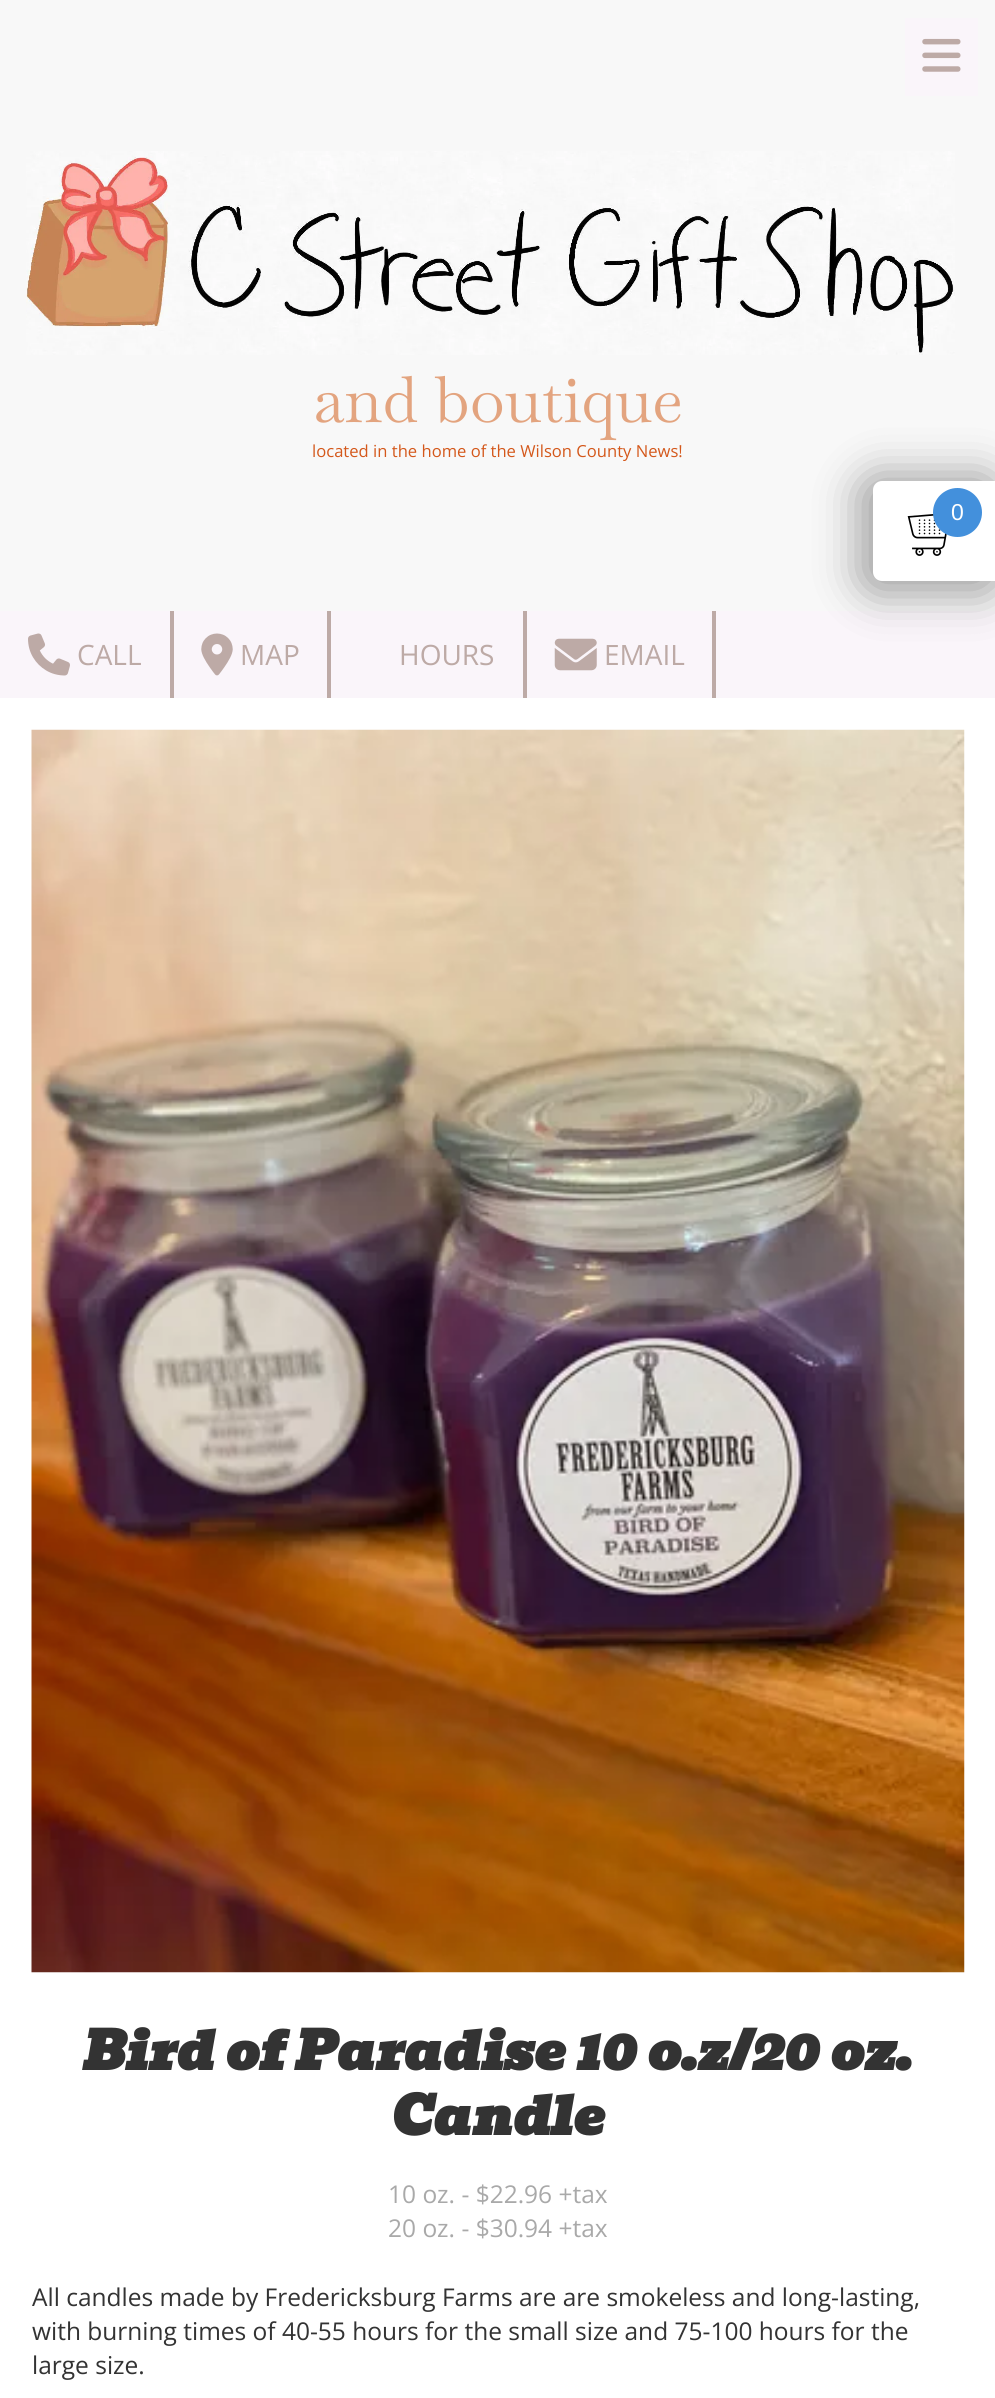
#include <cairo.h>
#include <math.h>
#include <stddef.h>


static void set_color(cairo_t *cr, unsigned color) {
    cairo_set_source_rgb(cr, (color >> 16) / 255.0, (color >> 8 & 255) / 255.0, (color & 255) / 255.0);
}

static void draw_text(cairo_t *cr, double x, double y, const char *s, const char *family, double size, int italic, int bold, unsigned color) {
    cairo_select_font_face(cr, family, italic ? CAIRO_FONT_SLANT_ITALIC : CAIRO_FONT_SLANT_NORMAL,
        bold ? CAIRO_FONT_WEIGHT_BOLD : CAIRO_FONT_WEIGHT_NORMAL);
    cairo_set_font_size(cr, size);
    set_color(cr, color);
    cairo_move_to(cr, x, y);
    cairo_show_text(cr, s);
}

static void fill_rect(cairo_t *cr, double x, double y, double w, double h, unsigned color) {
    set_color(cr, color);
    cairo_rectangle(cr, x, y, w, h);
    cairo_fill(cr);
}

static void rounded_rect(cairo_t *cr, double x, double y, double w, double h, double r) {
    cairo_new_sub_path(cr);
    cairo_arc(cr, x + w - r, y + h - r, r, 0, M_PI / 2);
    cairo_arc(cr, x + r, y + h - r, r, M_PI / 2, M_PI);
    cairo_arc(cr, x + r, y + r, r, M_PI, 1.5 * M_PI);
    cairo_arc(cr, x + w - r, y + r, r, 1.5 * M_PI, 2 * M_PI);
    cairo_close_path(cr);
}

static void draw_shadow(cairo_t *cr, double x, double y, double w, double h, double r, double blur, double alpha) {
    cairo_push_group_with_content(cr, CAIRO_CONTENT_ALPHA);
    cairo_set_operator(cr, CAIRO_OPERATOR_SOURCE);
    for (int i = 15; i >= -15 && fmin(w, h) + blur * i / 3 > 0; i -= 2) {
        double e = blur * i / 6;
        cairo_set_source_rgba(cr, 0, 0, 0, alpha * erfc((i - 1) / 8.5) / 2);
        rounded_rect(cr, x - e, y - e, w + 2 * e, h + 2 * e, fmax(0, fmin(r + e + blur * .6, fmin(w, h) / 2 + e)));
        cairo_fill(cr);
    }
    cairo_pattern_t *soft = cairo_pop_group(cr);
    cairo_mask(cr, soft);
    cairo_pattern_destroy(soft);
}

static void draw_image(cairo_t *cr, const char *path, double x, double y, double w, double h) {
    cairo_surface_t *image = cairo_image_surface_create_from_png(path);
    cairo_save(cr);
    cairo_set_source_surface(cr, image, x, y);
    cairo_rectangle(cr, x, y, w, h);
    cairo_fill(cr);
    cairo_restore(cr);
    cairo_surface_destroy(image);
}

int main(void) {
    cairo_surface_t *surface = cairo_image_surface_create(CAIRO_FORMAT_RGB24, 995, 2398);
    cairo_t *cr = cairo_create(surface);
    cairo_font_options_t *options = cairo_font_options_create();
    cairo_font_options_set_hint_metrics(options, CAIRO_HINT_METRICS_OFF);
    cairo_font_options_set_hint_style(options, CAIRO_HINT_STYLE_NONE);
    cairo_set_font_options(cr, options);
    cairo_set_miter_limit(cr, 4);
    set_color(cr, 0xF8F8F8);
    cairo_paint(cr);
    fill_rect(cr, 905, 18, 73, 78, 0xFAF5FA);
    draw_image(cr, "assets/img1.png", 922, 38, 39, 34);
    draw_image(cr, "assets/img2.png", 26, 151, 929, 204);
    draw_text(cr, 313, 422, "and boutique", "Baskervville", 64, 0, 0, 0xE3A47F);
    draw_text(cr, 312, 457, "located in the home of the Wilson County News!", "Open Sans", 16.6, 0, 0, 0xD4581B);
    fill_rect(cr, 0, 611, 995, 87, 0xFAF5FA);
    fill_rect(cr, 170, 611, 4, 87, 0xBDAAA6);
    draw_image(cr, "assets/img3.png", 28, 633, 42, 43);
    draw_text(cr, 77, 665, "CALL", "Open Sans", 28, 0, 0, 0xBDAAA6);
    fill_rect(cr, 327, 611, 4, 87, 0xBDAAA6);
    draw_image(cr, "assets/img4.png", 201, 633, 32, 43);
    draw_text(cr, 240, 665, "MAP", "Open Sans", 28, 0, 0, 0xBDAAA6);
    fill_rect(cr, 523, 611, 4, 87, 0xBDAAA6);
    draw_text(cr, 399, 665, "HOURS", "Open Sans", 28, 0, 0, 0xBDAAA6);
    fill_rect(cr, 712, 611, 4, 87, 0xBDAAA6);
    draw_image(cr, "assets/img5.png", 554, 638, 43, 33);
    draw_text(cr, 604, 665, "EMAIL", "Open Sans", 28, 0, 0, 0xBDAAA6);
    fill_rect(cr, 0, 698, 995, 1700, 0xFFFFFF);
    draw_image(cr, "assets/img6.png", 31, 729, 934, 1244);
    draw_text(cr, 83, 2070, "Bird of Paradise 10 o.z/20 oz.", "Bevan", 52.5, 1, 1, 0x333333);
    draw_text(cr, 391, 2135, "Candle", "Bevan", 52.5, 1, 1, 0x333333);
    draw_text(cr, 388, 2203, "10 oz. - $22.96 +tax", "Open Sans", 24.5, 0, 0, 0xA9A9A9);
    draw_text(cr, 388, 2237, "20 oz. - $30.94 +tax", "Open Sans", 24.5, 0, 0, 0xA9A9A9);
    draw_text(cr, 32, 2306, "All candles made by Fredericksburg Farms are are smokeless and long-lasting,", "Open Sans", 24.5, 0, 0, 0x333333);
    draw_text(cr, 32, 2340, "with burning times of 40-55 hours for the small size and 75-100 hours for the", "Open Sans", 24.5, 0, 0, 0x333333);
    draw_text(cr, 32, 2374, "large size.", "Open Sans", 24.5, 0, 0, 0x333333);
    set_color(cr, 0x000000);
    draw_shadow(cr, 858, 474, 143, 121, 19, 21.5, 0.35);
    set_color(cr, 0xFFFFFF);
    cairo_new_path(cr);
    cairo_move_to(cr, 882, 481);
    cairo_line_to(cr, 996, 481);
    cairo_line_to(cr, 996, 581);
    cairo_line_to(cr, 882, 581);
    cairo_curve_to(cr, 877, 581, 873, 577, 873, 572);
    cairo_line_to(cr, 873, 490);
    cairo_curve_to(cr, 873, 485, 877, 481, 882, 481);
    cairo_close_path(cr);
    cairo_fill(cr);
    draw_image(cr, "assets/img7.png", 907, 514, 40, 42);
    set_color(cr, 0x4390DC);
    cairo_arc(cr, 957.5, 512.5, 24.5, 0, 2 * M_PI);
    cairo_fill(cr);
    draw_text(cr, 951, 520, "0", "Liberation Sans", 23, 0, 0, 0xFFFFFF);
    cairo_surface_write_to_png(surface, "output.png");
    cairo_font_options_destroy(options);
    cairo_destroy(cr);
    cairo_surface_destroy(surface);
    return 0;
}
